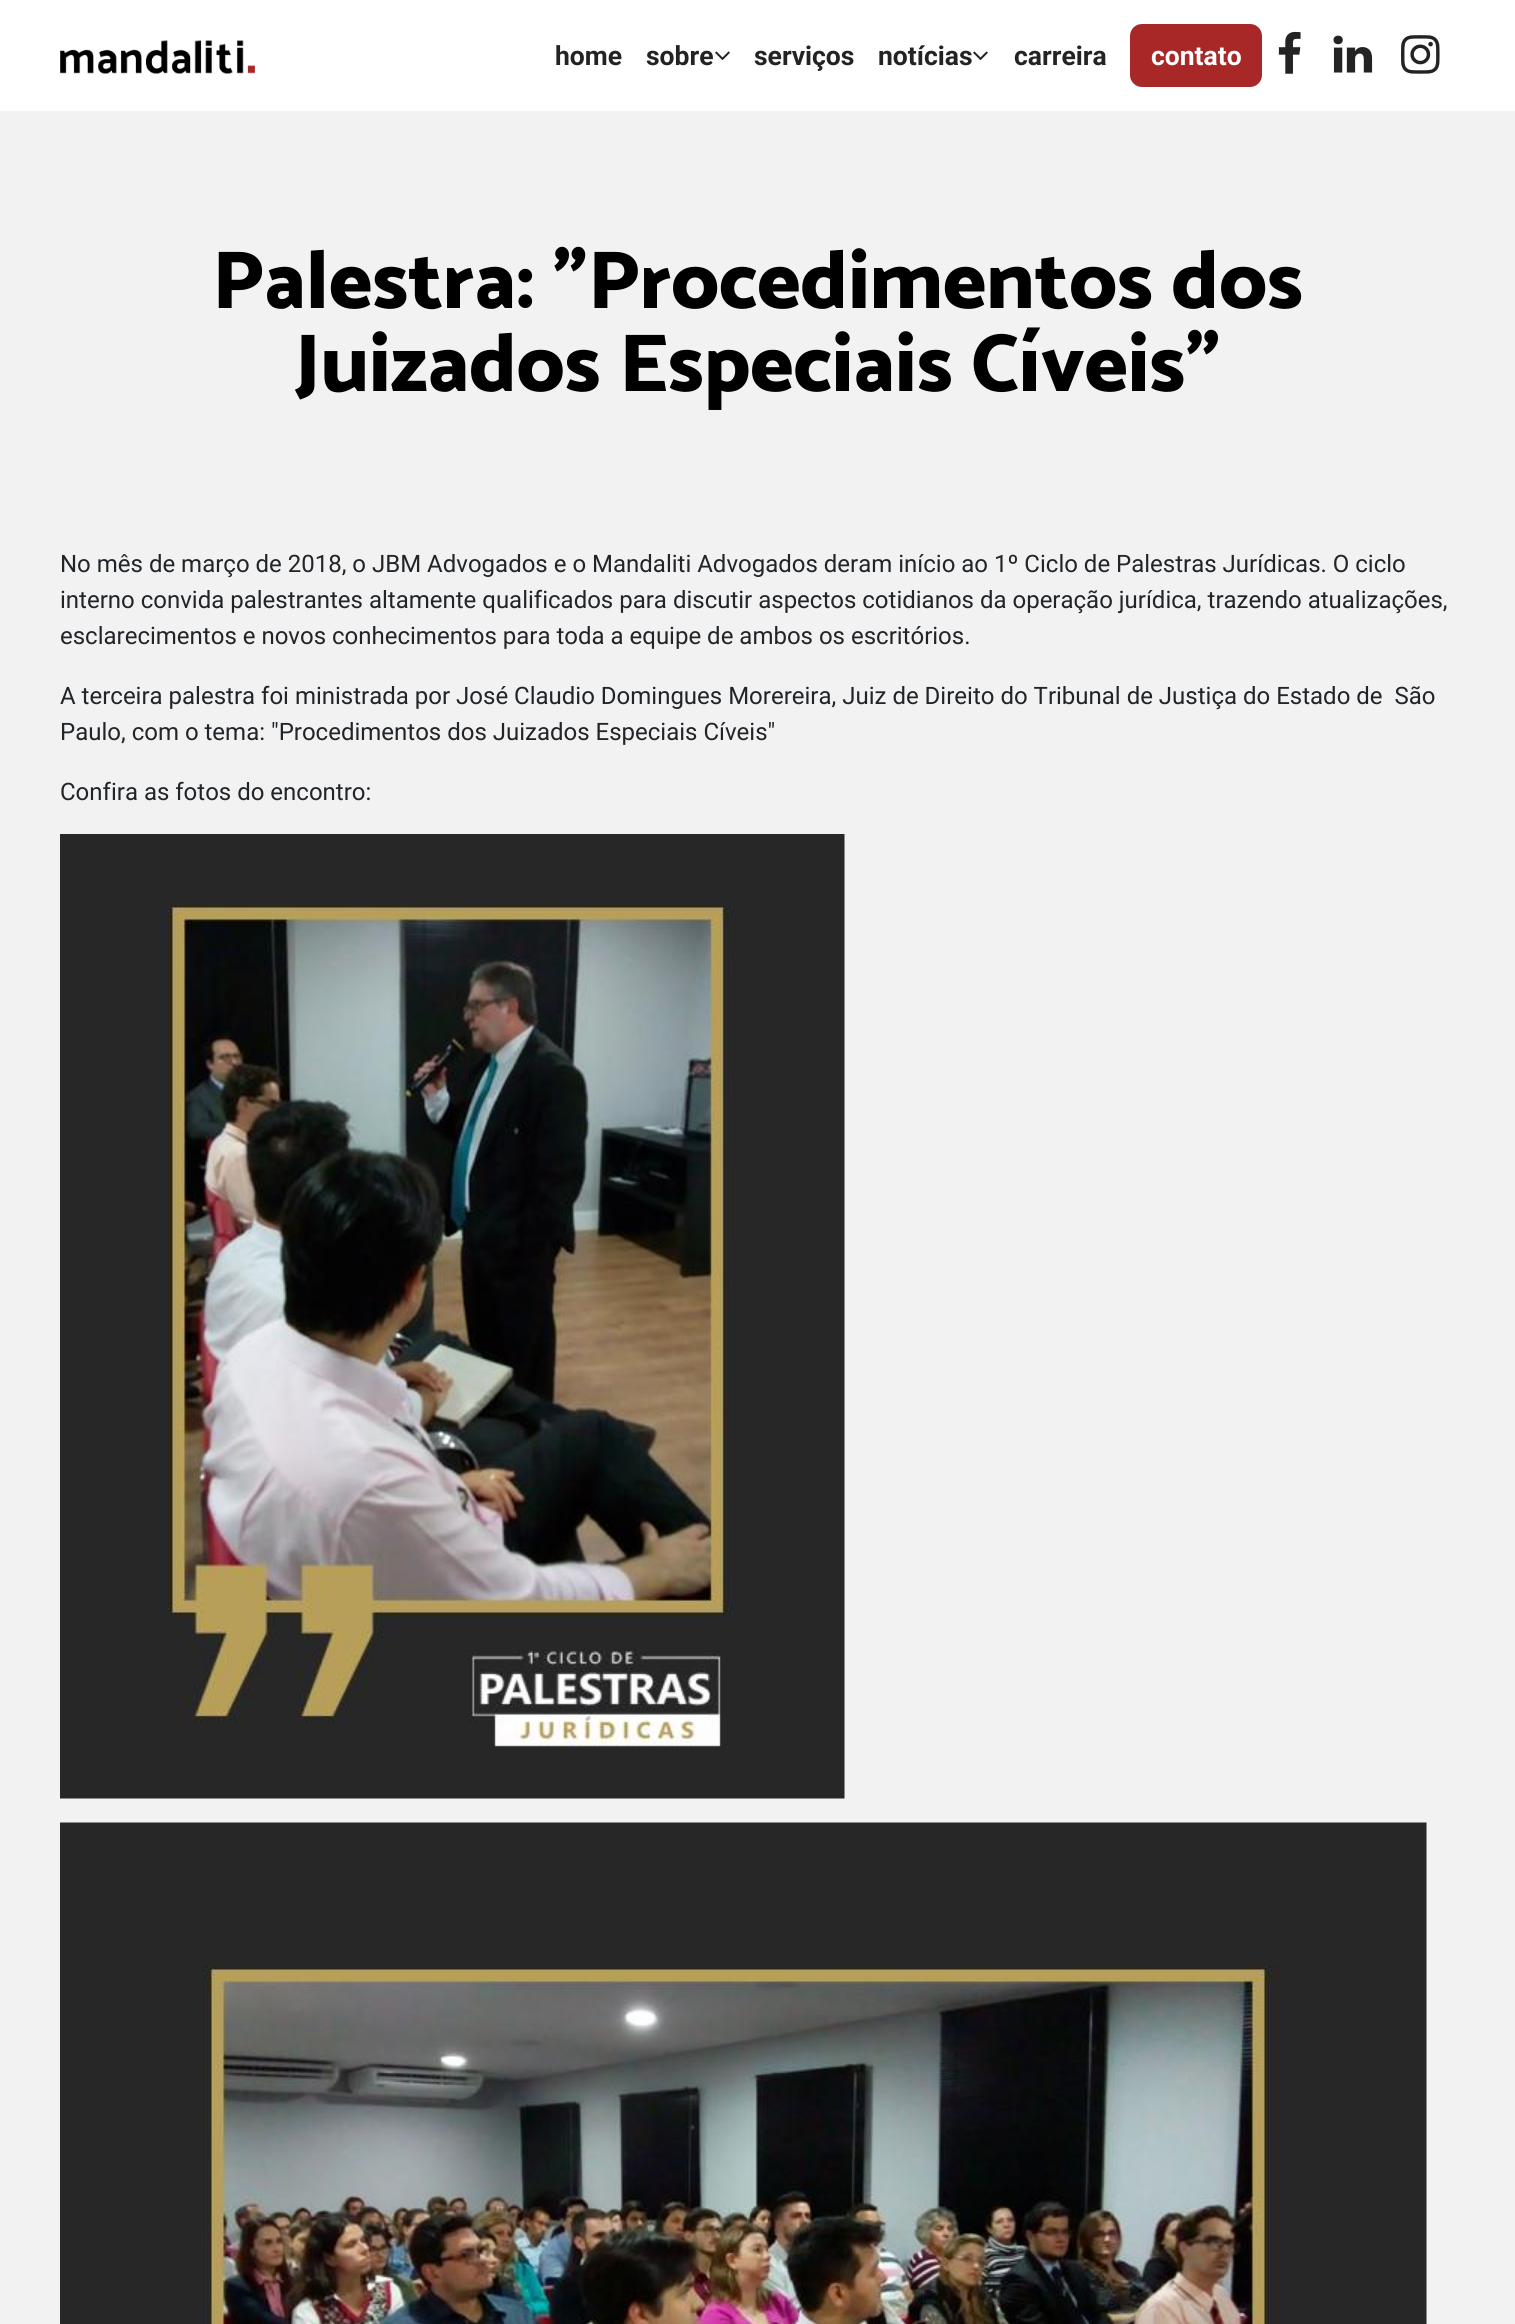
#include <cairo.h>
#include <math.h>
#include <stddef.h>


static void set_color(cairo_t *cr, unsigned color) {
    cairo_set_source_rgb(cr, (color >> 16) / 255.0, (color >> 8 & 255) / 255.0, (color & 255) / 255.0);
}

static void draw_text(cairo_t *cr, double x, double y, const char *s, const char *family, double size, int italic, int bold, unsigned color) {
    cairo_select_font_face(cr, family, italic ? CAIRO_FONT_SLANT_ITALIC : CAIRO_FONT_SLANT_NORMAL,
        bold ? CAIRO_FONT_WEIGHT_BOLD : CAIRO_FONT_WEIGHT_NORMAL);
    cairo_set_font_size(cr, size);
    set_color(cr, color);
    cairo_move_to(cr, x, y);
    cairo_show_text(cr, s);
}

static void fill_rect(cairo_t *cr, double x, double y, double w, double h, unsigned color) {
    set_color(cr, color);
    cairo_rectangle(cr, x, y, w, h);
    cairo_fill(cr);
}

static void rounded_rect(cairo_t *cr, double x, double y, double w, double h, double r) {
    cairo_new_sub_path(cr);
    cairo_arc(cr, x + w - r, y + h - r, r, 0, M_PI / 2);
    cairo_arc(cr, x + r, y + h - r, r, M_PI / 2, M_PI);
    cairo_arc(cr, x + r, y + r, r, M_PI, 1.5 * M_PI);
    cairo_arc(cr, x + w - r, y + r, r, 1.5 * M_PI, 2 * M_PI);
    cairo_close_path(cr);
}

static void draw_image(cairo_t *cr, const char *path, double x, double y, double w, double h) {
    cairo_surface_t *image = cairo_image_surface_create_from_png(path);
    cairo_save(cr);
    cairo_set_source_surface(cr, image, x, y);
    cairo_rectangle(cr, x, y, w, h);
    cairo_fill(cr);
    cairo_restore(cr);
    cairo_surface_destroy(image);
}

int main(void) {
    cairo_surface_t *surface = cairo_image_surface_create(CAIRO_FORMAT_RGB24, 1515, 2324);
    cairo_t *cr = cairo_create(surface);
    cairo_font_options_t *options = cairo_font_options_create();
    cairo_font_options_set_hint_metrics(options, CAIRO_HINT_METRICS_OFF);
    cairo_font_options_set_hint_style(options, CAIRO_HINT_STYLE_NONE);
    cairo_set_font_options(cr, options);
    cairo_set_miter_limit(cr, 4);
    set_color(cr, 0xFFFFFF);
    cairo_paint(cr);
    draw_image(cr, "assets/img1.png", 60, 40, 195, 34);
    draw_text(cr, 555, 65, "home", "Roboto", 26.5, 0, 1, 0x242323);
    draw_text(cr, 646, 65, "sobre", "Roboto", 26.5, 0, 1, 0x242323);
    draw_image(cr, "assets/img2.png", 715, 51, 15, 9);
    draw_text(cr, 754, 65, "serviços", "Roboto", 26.5, 0, 1, 0x242323);
    draw_text(cr, 878, 65, "notícias", "Roboto", 26.5, 0, 1, 0x242323);
    draw_image(cr, "assets/img2.png", 973, 51, 15, 9);
    draw_text(cr, 1014, 65, "carreira", "Roboto", 26.5, 0, 1, 0x242323);
    set_color(cr, 0xA82727);
    rounded_rect(cr, 1130, 24, 132, 63, 12);
    cairo_fill(cr);
    draw_text(cr, 1151, 65, "contato", "Roboto", 26.5, 0, 1, 0xFFFFFF);
    draw_image(cr, "assets/img3.png", 1278, 31, 23, 43);
    draw_image(cr, "assets/img4.png", 1333, 35, 40, 38);
    draw_image(cr, "assets/img5.png", 1401, 35, 39, 39);
    fill_rect(cr, 0, 111, 1515, 2213, 0xF2F2F2);
    draw_text(cr, 212, 308, "Palestra: \"Procedimentos dos", "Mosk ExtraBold", 82.5, 0, 0, 0x000000);
    draw_text(cr, 294, 391, "Juizados Especiais Cíveis\"", "Mosk ExtraBold", 82.5, 0, 0, 0x000000);
    draw_text(cr, 60, 572, "No mês de março de 2018, o JBM Advogados e o Mandaliti Advogados deram início ao 1º Ciclo de Palestras Jurídicas. O ciclo", "Roboto", 24, 0, 0, 0x212529);
    draw_text(cr, 60, 608, "interno convida palestrantes altamente qualificados para discutir aspectos cotidianos da operação jurídica, trazendo atualizações,", "Roboto", 24, 0, 0, 0x212529);
    draw_text(cr, 60, 644, "esclarecimentos e novos conhecimentos para toda a equipe de ambos os escritórios.", "Roboto", 24, 0, 0, 0x212529);
    draw_text(cr, 60, 704, "A terceira palestra foi ministrada por José Claudio Domingues Morereira, Juiz de Direito do Tribunal de Justiça do Estado de  São", "Roboto", 24, 0, 0, 0x212529);
    draw_text(cr, 60, 740, "Paulo, com o tema: \"Procedimentos dos Juizados Especiais Cíveis\"", "Roboto", 24, 0, 0, 0x212529);
    draw_text(cr, 60, 800, "Confira as fotos do encontro:", "Roboto", 24, 0, 0, 0x212529);
    draw_image(cr, "assets/img6.png", 60, 834, 785, 965);
    draw_image(cr, "assets/img7.png", 60, 1822, 1367, 502);
    cairo_surface_write_to_png(surface, "output.png");
    cairo_font_options_destroy(options);
    cairo_destroy(cr);
    cairo_surface_destroy(surface);
    return 0;
}
